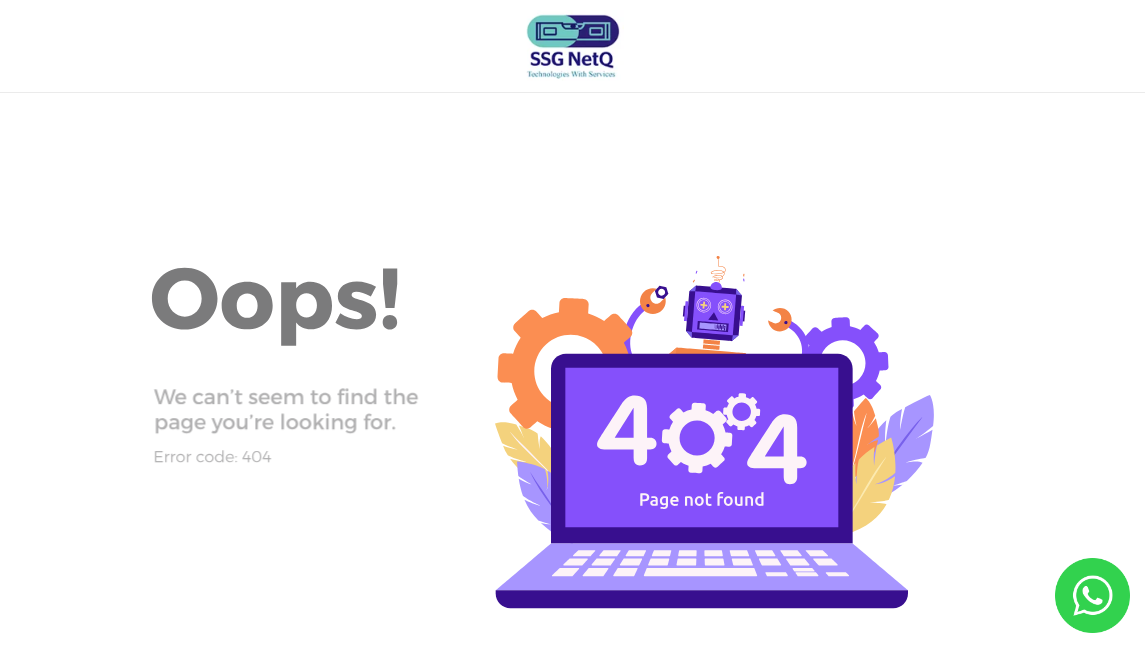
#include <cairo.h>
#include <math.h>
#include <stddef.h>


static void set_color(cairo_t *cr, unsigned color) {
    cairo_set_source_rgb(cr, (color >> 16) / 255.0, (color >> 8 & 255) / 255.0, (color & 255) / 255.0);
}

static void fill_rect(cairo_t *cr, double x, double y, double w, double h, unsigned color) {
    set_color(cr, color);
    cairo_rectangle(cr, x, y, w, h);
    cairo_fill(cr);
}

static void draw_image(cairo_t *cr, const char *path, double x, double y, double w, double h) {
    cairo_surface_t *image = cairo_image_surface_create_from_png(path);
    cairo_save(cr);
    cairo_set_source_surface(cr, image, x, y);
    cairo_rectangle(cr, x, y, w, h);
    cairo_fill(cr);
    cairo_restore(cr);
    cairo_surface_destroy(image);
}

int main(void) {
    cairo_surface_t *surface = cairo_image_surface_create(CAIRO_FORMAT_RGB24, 1145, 648);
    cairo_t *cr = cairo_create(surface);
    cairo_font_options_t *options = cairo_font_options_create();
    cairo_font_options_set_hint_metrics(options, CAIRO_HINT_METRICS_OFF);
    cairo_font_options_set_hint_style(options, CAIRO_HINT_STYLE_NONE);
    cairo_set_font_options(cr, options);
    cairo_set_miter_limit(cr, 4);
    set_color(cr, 0xFFFFFF);
    cairo_paint(cr);
    fill_rect(cr, 0, 92, 1145, 1, 0xEBEBEB);
    draw_image(cr, "assets/img1.png", 526, 10, 98, 71);
    draw_image(cr, "assets/img2.png", 151, 256, 783, 353);
    draw_image(cr, "assets/img3.png", 1055, 558, 75, 75);
    cairo_surface_write_to_png(surface, "output.png");
    cairo_font_options_destroy(options);
    cairo_destroy(cr);
    cairo_surface_destroy(surface);
    return 0;
}
